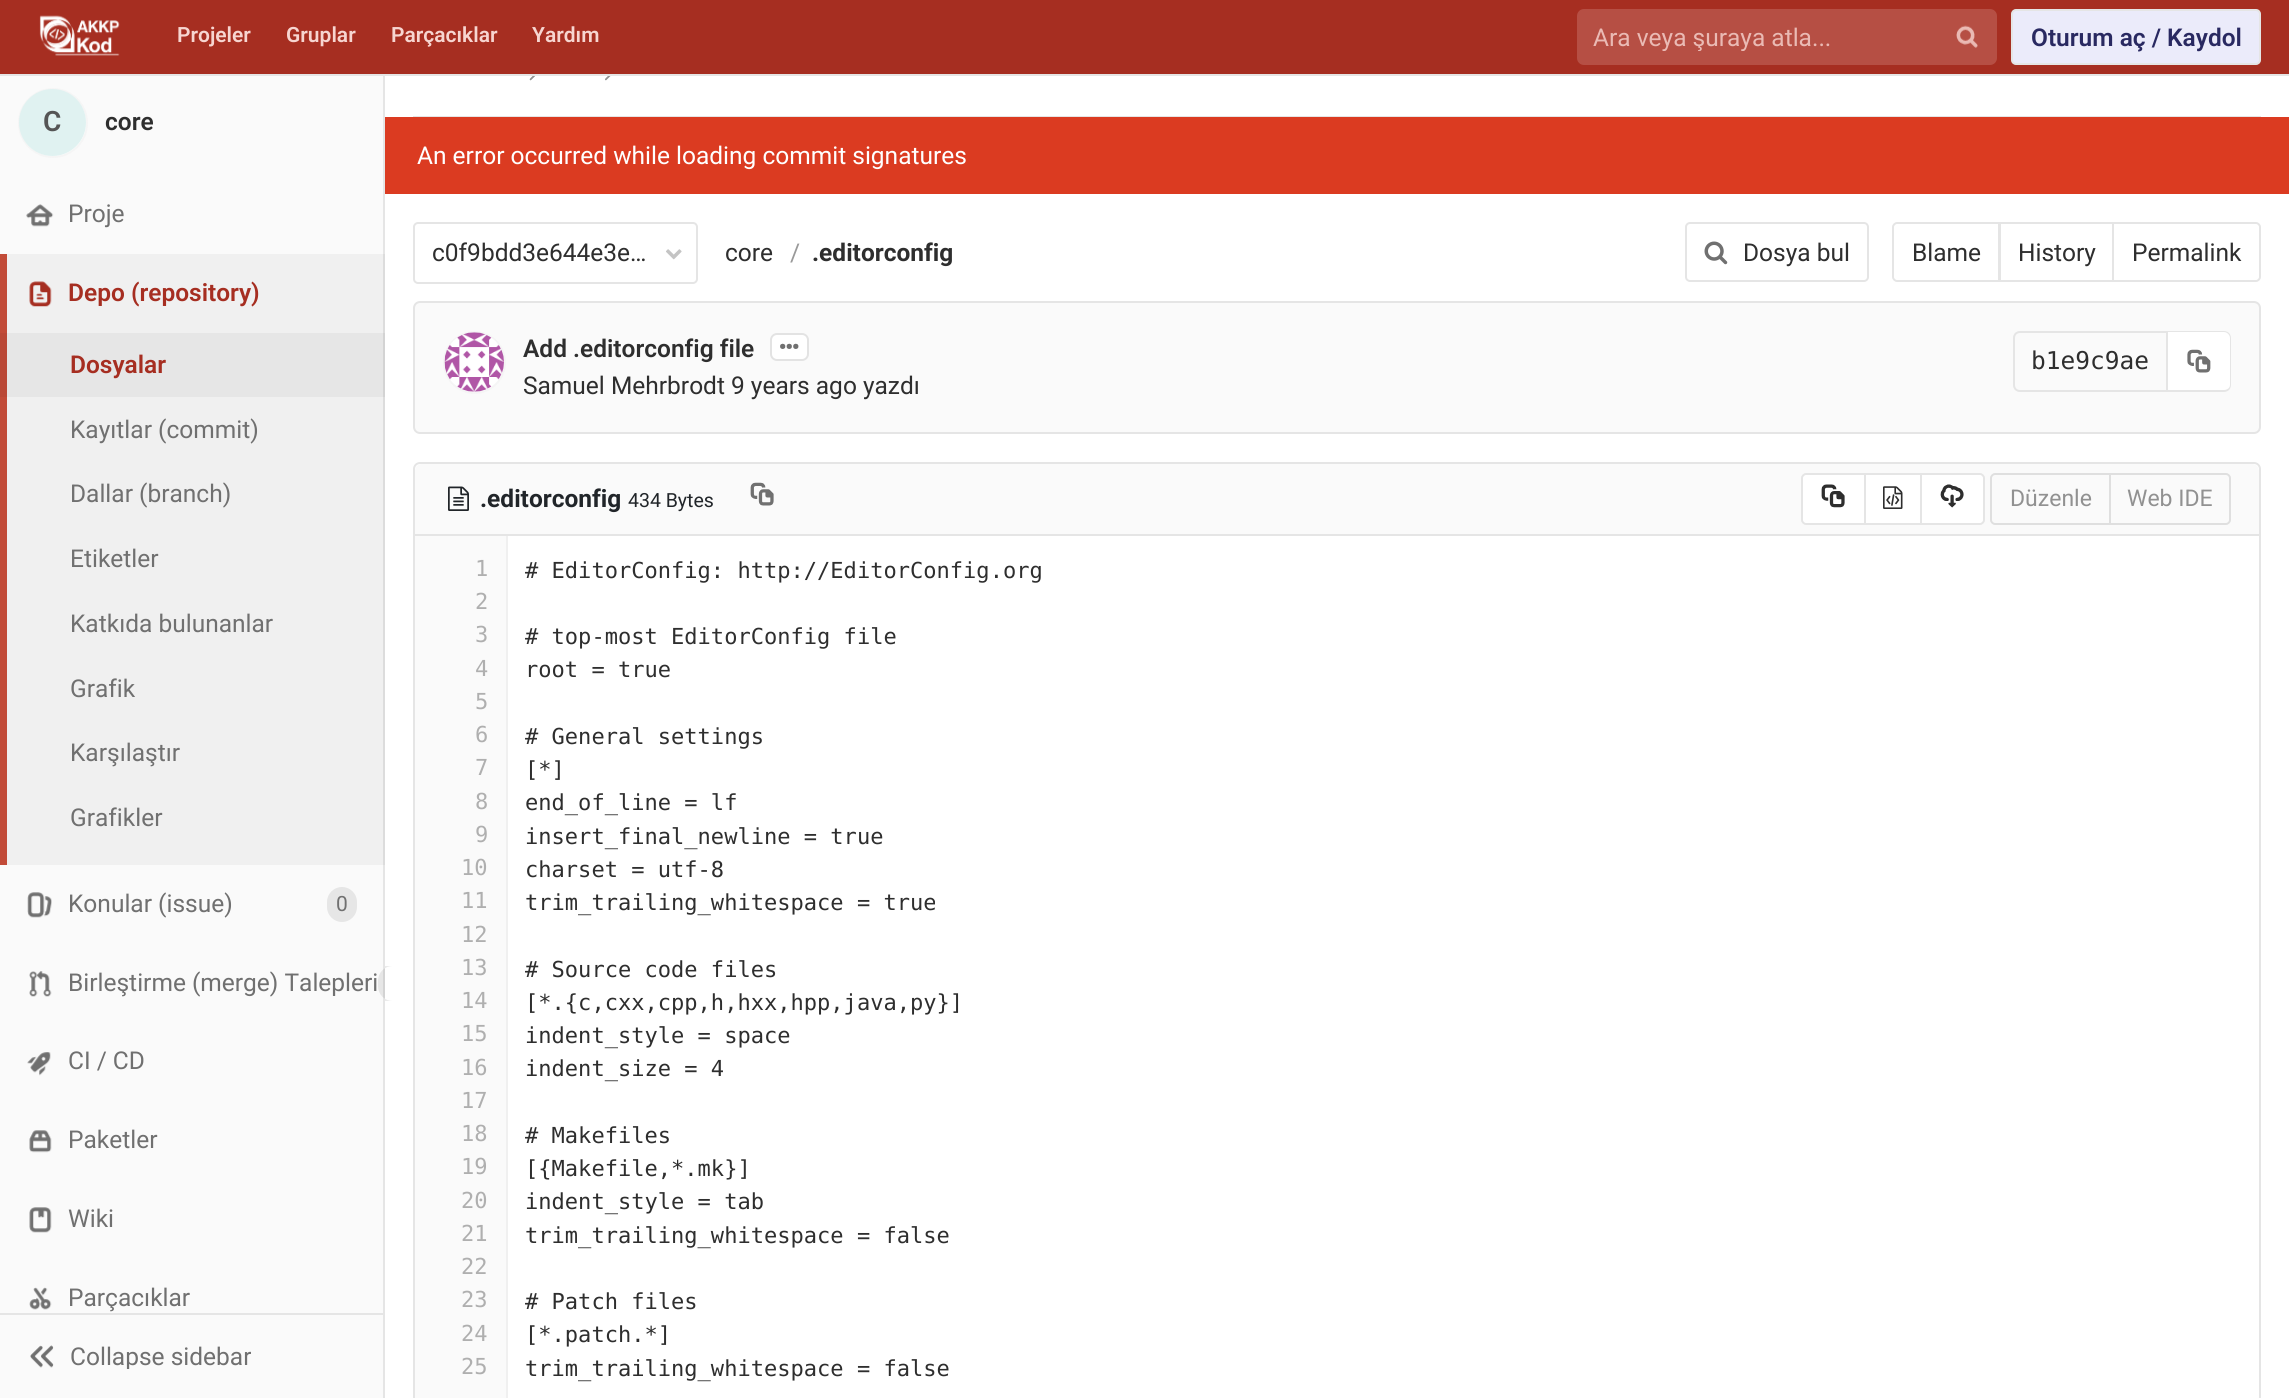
#include <cairo.h>
#include <math.h>
#include <stddef.h>


static void set_color(cairo_t *cr, unsigned color) {
    cairo_set_source_rgb(cr, (color >> 16) / 255.0, (color >> 8 & 255) / 255.0, (color & 255) / 255.0);
}

static void draw_text(cairo_t *cr, double x, double y, const char *s, const char *family, double size, int italic, int bold, unsigned color) {
    cairo_select_font_face(cr, family, italic ? CAIRO_FONT_SLANT_ITALIC : CAIRO_FONT_SLANT_NORMAL,
        bold ? CAIRO_FONT_WEIGHT_BOLD : CAIRO_FONT_WEIGHT_NORMAL);
    cairo_set_font_size(cr, size);
    set_color(cr, color);
    cairo_move_to(cr, x, y);
    cairo_show_text(cr, s);
}

static void fill_rect(cairo_t *cr, double x, double y, double w, double h, unsigned color) {
    set_color(cr, color);
    cairo_rectangle(cr, x, y, w, h);
    cairo_fill(cr);
}

static void rounded_rect(cairo_t *cr, double x, double y, double w, double h, double r) {
    cairo_new_sub_path(cr);
    cairo_arc(cr, x + w - r, y + h - r, r, 0, M_PI / 2);
    cairo_arc(cr, x + r, y + h - r, r, M_PI / 2, M_PI);
    cairo_arc(cr, x + r, y + r, r, M_PI, 1.5 * M_PI);
    cairo_arc(cr, x + w - r, y + r, r, 1.5 * M_PI, 2 * M_PI);
    cairo_close_path(cr);
}

static void draw_image(cairo_t *cr, const char *path, double x, double y, double w, double h) {
    cairo_surface_t *image = cairo_image_surface_create_from_png(path);
    cairo_save(cr);
    cairo_set_source_surface(cr, image, x, y);
    cairo_rectangle(cr, x, y, w, h);
    cairo_fill(cr);
    cairo_restore(cr);
    cairo_surface_destroy(image);
}

int main(void) {
    cairo_surface_t *surface = cairo_image_surface_create(CAIRO_FORMAT_RGB24, 2289, 1398);
    cairo_t *cr = cairo_create(surface);
    cairo_font_options_t *options = cairo_font_options_create();
    cairo_font_options_set_hint_metrics(options, CAIRO_HINT_METRICS_OFF);
    cairo_font_options_set_hint_style(options, CAIRO_HINT_STYLE_NONE);
    cairo_set_font_options(cr, options);
    cairo_set_miter_limit(cr, 4);
    set_color(cr, 0xFFFFFF);
    cairo_paint(cr);
    fill_rect(cr, 383, 70, 2, 1328, 0xE5E5E5);
    fill_rect(cr, 0, 0, 2289, 74, 0xA62E21);
    fill_rect(cr, 0, 74, 2289, 2, 0xE5E5E5);
    draw_image(cr, "assets/img1.png", 39, 15, 81, 41);
    draw_text(cr, 177, 42, "Projeler", "Roboto SemiBold", 21, 0, 0, 0xF7D5D0);
    draw_text(cr, 286, 42, "Gruplar", "Roboto SemiBold", 21, 0, 0, 0xF7D5D0);
    draw_text(cr, 391, 42, "Parçacıklar", "Roboto SemiBold", 21, 0, 0, 0xF7D5D0);
    draw_text(cr, 532, 42, "Yardım", "Roboto SemiBold", 21, 0, 0, 0xF7D5D0);
    set_color(cr, 0xB64F44);
    rounded_rect(cr, 1577, 9, 420, 56, 7);
    cairo_fill(cr);
    cairo_save(cr);
    cairo_rectangle(cr, 1593, 23, 306, 28);
    cairo_clip(cr);
    draw_text(cr, 1593, 46, "Ara veya şuraya atla...", "Roboto", 24.5, 0, 0, 0xEABAB4);
    cairo_restore(cr);
    draw_image(cr, "assets/img2.png", 1956, 25, 22, 23);
    set_color(cr, 0xEBEBFA);
    rounded_rect(cr, 2012, 10, 248, 54, 4);
    cairo_fill_preserve(cr);
    set_color(cr, 0xE5E5E5);
    cairo_stroke(cr);
    draw_text(cr, 2031, 46, "Oturum aç / Kaydol", "Roboto SemiBold", 24.5, 0, 0, 0x292961);
    fill_rect(cr, 0, 76, 383, 1237, 0xFAFAFA);
    fill_rect(cr, 7, 254, 376, 611, 0xF0F0F0);
    fill_rect(cr, 7, 333, 376, 64, 0xE6E6E6);
    fill_rect(cr, 383, 254, 2, 611, 0xDCDCDC);
    fill_rect(cr, 383, 333, 2, 64, 0xD3D3D3);
    set_color(cr, 0xFFFFFF);
    cairo_new_path(cr);
    cairo_arc(cr, 53, 123, 34, 0, 2 * M_PI);
    cairo_fill_preserve(cr);
    set_color(cr, 0xF5F5F5);
    cairo_stroke(cr);
    set_color(cr, 0xE0F2F1);
    cairo_arc(cr, 52.5, 122.5, 33.5, 0, 2 * M_PI);
    cairo_fill(cr);
    draw_text(cr, 43, 131, "C", "Roboto SemiBold", 28, 0, 0, 0x555555);
    draw_text(cr, 105, 130, "core", "Roboto SemiBold", 24.5, 0, 0, 0x2E2E2E);
    draw_image(cr, "assets/img3.png", 26, 204, 28, 23);
    draw_text(cr, 68, 222, "Proje", "Roboto", 24.5, 0, 0, 0x707070);
    fill_rect(cr, 0, 254, 7, 611, 0xC24B38);
    fill_rect(cr, 0, 333, 7, 64, 0xBA4836);
    draw_image(cr, "assets/img4.png", 29, 281, 23, 26);
    draw_text(cr, 68, 301, "Depo (repository)", "Roboto SemiBold", 24.5, 0, 0, 0xA62E21);
    draw_text(cr, 70, 373, "Dosyalar", "Roboto SemiBold", 24.5, 0, 0, 0xA62E21);
    draw_text(cr, 70, 438, "Kayıtlar (commit)", "Roboto", 24.5, 0, 0, 0x707070);
    draw_text(cr, 70, 502, "Dallar (branch)", "Roboto", 24.5, 0, 0, 0x707070);
    draw_text(cr, 70, 567, "Etiketler", "Roboto", 24.5, 0, 0, 0x707070);
    draw_text(cr, 70, 632, "Katkıda bulunanlar", "Roboto", 24.5, 0, 0, 0x707070);
    draw_text(cr, 70, 697, "Grafik", "Roboto", 24.5, 0, 0, 0x707070);
    draw_text(cr, 70, 761, "Karşılaştır", "Roboto", 24.5, 0, 0, 0x707070);
    draw_text(cr, 70, 826, "Grafikler", "Roboto", 24.5, 0, 0, 0x707070);
    draw_image(cr, "assets/img5.png", 27, 892, 25, 26);
    draw_text(cr, 68, 912, "Konular (issue)", "Roboto", 24.5, 0, 0, 0x707070);
    set_color(cr, 0xE6E6E6);
    rounded_rect(cr, 327, 887, 30, 35, 15);
    cairo_fill(cr);
    draw_text(cr, 336, 911, "0", "Roboto", 21, 0, 0, 0x707070);
    draw_image(cr, "assets/img6.png", 29, 971, 23, 26);
    draw_text(cr, 68, 991, "Birleştirme (merge) Talepleri", "Roboto", 24.5, 0, 0, 0x707070);
    cairo_set_source_rgba(cr, 0, 0, 0, 0.08);
    cairo_new_path(cr);
    cairo_move_to(cr, 393, 966);
    cairo_line_to(cr, 385, 966);
    cairo_line_to(cr, 385, 1001);
    cairo_line_to(cr, 393, 1001);
    cairo_curve_to(cr, 384.5, 1001, 378, 994.5, 378, 986);
    cairo_line_to(cr, 378, 981);
    cairo_curve_to(cr, 378, 972.5, 384.5, 966, 393, 966);
    cairo_close_path(cr);
    cairo_fill(cr);
    draw_image(cr, "assets/img7.png", 27, 1052, 24, 24);
    draw_text(cr, 68, 1069, "CI / CD", "Roboto", 24.5, 0, 0, 0x707070);
    draw_image(cr, "assets/img8.png", 29, 1130, 23, 23);
    draw_text(cr, 68, 1148, "Paketler", "Roboto", 24.5, 0, 0, 0x707070);
    draw_image(cr, "assets/img9.png", 29, 1207, 23, 26);
    draw_text(cr, 68, 1227, "Wiki", "Roboto", 24.5, 0, 0, 0x707070);
    draw_image(cr, "assets/img10.png", 29, 1287, 23, 23);
    draw_text(cr, 68, 1306, "Parçacıklar", "Roboto", 24.5, 0, 0, 0x707070);
    fill_rect(cr, 0, 1315, 383, 83, 0xFAFAFA);
    fill_rect(cr, 0, 1313, 383, 2, 0xE5E5E5);
    draw_image(cr, "assets/img11.png", 30, 1345, 24, 23);
    cairo_save(cr);
    cairo_rectangle(cr, 70, 1344, 182, 25);
    cairo_clip(cr);
    draw_text(cr, 70, 1365, "Collapse sidebar", "Roboto", 24.5, 0, 0, 0x707070);
    cairo_restore(cr);
    fill_rect(cr, 413, 116, 1848, 1, 0xE5E5E5);
    draw_image(cr, "assets/img12.png", 529, 76, 6, 5);
    draw_image(cr, "assets/img13.png", 605, 76, 6, 5);
    fill_rect(cr, 385, 117, 1904, 77, 0xDB3B21);
    draw_text(cr, 417, 164, "An error occurred while loading commit signatures", "Roboto", 24.5, 0, 0, 0xFFFFFF);
    rounded_rect(cr, 414, 223, 283, 60, 4);
    set_color(cr, 0xE5E5E5);
    cairo_stroke(cr);
    draw_text(cr, 432, 261, "c0f9bdd3e644e3e…", "Roboto", 24.5, 0, 0, 0x2E2E2E);
    draw_image(cr, "assets/img14.png", 666, 249, 16, 11);
    draw_text(cr, 725, 261, "core", "Roboto", 24.5, 0, 0, 0x2E2E2E);
    draw_text(cr, 790, 261, "/", "Roboto", 24.5, 0, 0, 0x999999);
    draw_text(cr, 812, 261, ".editorconfig", "Roboto", 24.5, 0, 1, 0x2E2E2E);
    rounded_rect(cr, 1686, 223, 182, 58, 4);
    set_color(cr, 0xE5E5E5);
    cairo_stroke(cr);
    draw_image(cr, "assets/img15.png", 1704, 241, 24, 24);
    draw_text(cr, 1743, 261, "Dosya bul", "Roboto", 24.5, 0, 0, 0x2E2E2E);
    cairo_new_path(cr);
    cairo_move_to(cr, 1897, 223);
    cairo_line_to(cr, 1999, 223);
    cairo_line_to(cr, 1999, 281);
    cairo_line_to(cr, 1897, 281);
    cairo_curve_to(cr, 1895, 281, 1893, 279, 1893, 277);
    cairo_line_to(cr, 1893, 227);
    cairo_curve_to(cr, 1893, 225, 1895, 223, 1897, 223);
    cairo_close_path(cr);
    set_color(cr, 0xE5E5E5);
    cairo_stroke(cr);
    draw_text(cr, 1912, 261, "Blame", "Roboto", 24.5, 0, 0, 0x2E2E2E);
    cairo_rectangle(cr, 2000, 223, 113, 58);
    set_color(cr, 0xE5E5E5);
    cairo_stroke(cr);
    draw_text(cr, 2018, 261, "History", "Roboto", 24.5, 0, 0, 0x2E2E2E);
    set_color(cr, 0xFFFFFF);
    cairo_new_path(cr);
    cairo_move_to(cr, 2113, 223);
    cairo_line_to(cr, 2256, 223);
    cairo_curve_to(cr, 2258, 223, 2260, 225, 2260, 227);
    cairo_line_to(cr, 2260, 277);
    cairo_curve_to(cr, 2260, 279, 2258, 281, 2256, 281);
    cairo_line_to(cr, 2113, 281);
    cairo_close_path(cr);
    cairo_fill_preserve(cr);
    set_color(cr, 0xE5E5E5);
    cairo_stroke(cr);
    draw_text(cr, 2132, 261, "Permalink", "Roboto", 24.5, 0, 0, 0x2E2E2E);
    set_color(cr, 0xFAFAFA);
    rounded_rect(cr, 414, 302, 1846, 131, 6);
    cairo_fill_preserve(cr);
    set_color(cr, 0xE5E5E5);
    cairo_stroke(cr);
    set_color(cr, 0xFDFDFD);
    cairo_arc(cr, 474.5, 362.5, 30.5, 0, 2 * M_PI);
    cairo_fill_preserve(cr);
    set_color(cr, 0xF5F5F5);
    cairo_stroke(cr);
    draw_image(cr, "assets/img16.png", 444, 332, 60, 60);
    draw_text(cr, 523, 357, "Add .editorconfig file", "Roboto SemiBold", 24.5, 0, 0, 0x2E2E2E);
    set_color(cr, 0xFFFFFF);
    rounded_rect(cr, 771, 334, 37, 26, 6);
    cairo_fill_preserve(cr);
    set_color(cr, 0xE3E3E3);
    cairo_stroke(cr);
    draw_image(cr, "assets/img17.png", 780, 343, 19, 6);
    draw_text(cr, 523, 394, "Samuel Mehrbrodt 9 years ago yazdı", "Roboto", 24.5, 0, 0, 0x2E2E2E);
    cairo_new_path(cr);
    cairo_move_to(cr, 2020, 332);
    cairo_line_to(cr, 2167, 332);
    cairo_line_to(cr, 2167, 391);
    cairo_line_to(cr, 2020, 391);
    cairo_curve_to(cr, 2016.5, 391, 2014, 388.5, 2014, 385);
    cairo_line_to(cr, 2014, 338);
    cairo_curve_to(cr, 2014, 334.5, 2016.5, 332, 2020, 332);
    cairo_close_path(cr);
    set_color(cr, 0xE5E5E5);
    cairo_stroke(cr);
    draw_text(cr, 2031, 369, "b1e9c9ae", "DejaVu Sans Mono", 24.5, 0, 0, 0x2E2E2E);
    set_color(cr, 0xFFFFFF);
    cairo_new_path(cr);
    cairo_move_to(cr, 2168, 331);
    cairo_line_to(cr, 2224, 331);
    cairo_curve_to(cr, 2228, 331, 2231, 334, 2231, 338);
    cairo_line_to(cr, 2231, 385);
    cairo_curve_to(cr, 2231, 389, 2228, 392, 2224, 392);
    cairo_line_to(cr, 2168, 392);
    cairo_close_path(cr);
    cairo_fill(cr);
    set_color(cr, 0xE5E5E5);
    cairo_set_fill_rule(cr, CAIRO_FILL_RULE_EVEN_ODD);
    cairo_new_path(cr);
    cairo_move_to(cr, 2168, 331);
    cairo_line_to(cr, 2224, 331);
    cairo_curve_to(cr, 2228, 331, 2231, 334, 2231, 338);
    cairo_line_to(cr, 2231, 385);
    cairo_curve_to(cr, 2231, 389, 2228, 392, 2224, 392);
    cairo_line_to(cr, 2168, 392);
    cairo_close_path(cr);
    cairo_move_to(cr, 2168, 332);
    cairo_line_to(cr, 2224, 332);
    cairo_curve_to(cr, 2227, 332, 2230, 335, 2230, 338);
    cairo_line_to(cr, 2230, 385);
    cairo_curve_to(cr, 2230, 388, 2227, 390, 2224, 390);
    cairo_line_to(cr, 2168, 390);
    cairo_close_path(cr);
    cairo_fill(cr);
    draw_image(cr, "assets/img18.png", 2187, 349, 24, 24);
    rounded_rect(cr, 414, 463, 1846, 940, 6);
    cairo_stroke(cr);
    set_color(cr, 0xFAFAFA);
    cairo_new_path(cr);
    cairo_move_to(cr, 422, 464);
    cairo_line_to(cr, 2252, 464);
    cairo_curve_to(cr, 2256, 464, 2259, 467, 2259, 471);
    cairo_line_to(cr, 2259, 536);
    cairo_line_to(cr, 415, 536);
    cairo_line_to(cr, 415, 471);
    cairo_curve_to(cr, 415, 467, 418, 464, 422, 464);
    cairo_close_path(cr);
    cairo_fill(cr);
    fill_rect(cr, 415, 534, 1844, 2, 0xE5E5E5);
    draw_image(cr, "assets/img19.png", 448, 486, 21, 25);
    draw_text(cr, 480, 507, ".editorconfig", "Roboto", 24.5, 0, 1, 0x212529);
    draw_text(cr, 628, 507, "434 Bytes", "Roboto", 19.5, 0, 0, 0x212529);
    draw_image(cr, "assets/img20.png", 750, 482, 24, 24);
    set_color(cr, 0xFFFFFF);
    cairo_new_path(cr);
    cairo_move_to(cr, 1806, 474);
    cairo_line_to(cr, 1865, 474);
    cairo_line_to(cr, 1865, 524);
    cairo_line_to(cr, 1806, 524);
    cairo_curve_to(cr, 1804, 524, 1802, 522, 1802, 520);
    cairo_line_to(cr, 1802, 478);
    cairo_curve_to(cr, 1802, 476, 1804, 474, 1806, 474);
    cairo_close_path(cr);
    cairo_fill_preserve(cr);
    set_color(cr, 0xE5E5E5);
    cairo_stroke(cr);
    draw_image(cr, "assets/img21.png", 1821, 484, 24, 24);
    set_color(cr, 0xFFFFFF);
    cairo_rectangle(cr, 1865, 474, 56, 50);
    cairo_fill_preserve(cr);
    set_color(cr, 0xE5E5E5);
    cairo_stroke(cr);
    draw_image(cr, "assets/img22.png", 1883, 486, 20, 23);
    set_color(cr, 0xFFFFFF);
    cairo_new_path(cr);
    cairo_move_to(cr, 1921, 474);
    cairo_line_to(cr, 1980, 474);
    cairo_curve_to(cr, 1982, 474, 1984, 476, 1984, 478);
    cairo_line_to(cr, 1984, 520);
    cairo_curve_to(cr, 1984, 522, 1982, 524, 1980, 524);
    cairo_line_to(cr, 1921, 524);
    cairo_close_path(cr);
    cairo_fill_preserve(cr);
    set_color(cr, 0xE5E5E5);
    cairo_stroke(cr);
    draw_image(cr, "assets/img23.png", 1940, 484, 24, 24);
    cairo_new_path(cr);
    cairo_move_to(cr, 1995, 474);
    cairo_line_to(cr, 2110, 474);
    cairo_line_to(cr, 2110, 524);
    cairo_line_to(cr, 1995, 524);
    cairo_curve_to(cr, 1993, 524, 1991, 522, 1991, 520);
    cairo_line_to(cr, 1991, 478);
    cairo_curve_to(cr, 1991, 476, 1993, 474, 1995, 474);
    cairo_close_path(cr);
    set_color(cr, 0xDFDFDF);
    cairo_stroke(cr);
    draw_text(cr, 2010, 506, "Düzenle", "Roboto", 23, 0, 0, 0x919191);
    set_color(cr, 0xFAFAFA);
    cairo_new_path(cr);
    cairo_move_to(cr, 2110, 474);
    cairo_line_to(cr, 2226, 474);
    cairo_curve_to(cr, 2228, 474, 2230, 476, 2230, 478);
    cairo_line_to(cr, 2230, 520);
    cairo_curve_to(cr, 2230, 522, 2228, 524, 2226, 524);
    cairo_line_to(cr, 2110, 524);
    cairo_close_path(cr);
    cairo_fill_preserve(cr);
    set_color(cr, 0xDFDFDF);
    cairo_stroke(cr);
    draw_text(cr, 2127, 506, "Web IDE", "Roboto", 23, 0, 0, 0x919191);
    fill_rect(cr, 415, 536, 91, 862, 0xFAFAFA);
    draw_text(cr, 475, 576, "1", "DejaVu Sans Mono", 22.05, 0, 0, 0xAFAFAF);
    draw_text(cr, 475, 609, "2", "DejaVu Sans Mono", 22.05, 0, 0, 0xAFAFAF);
    draw_text(cr, 475, 642, "3", "DejaVu Sans Mono", 22.05, 0, 0, 0xAFAFAF);
    draw_text(cr, 475, 676, "4", "DejaVu Sans Mono", 22.05, 0, 0, 0xAFAFAF);
    draw_text(cr, 475, 709, "5", "DejaVu Sans Mono", 22.05, 0, 0, 0xAFAFAF);
    draw_text(cr, 475, 742, "6", "DejaVu Sans Mono", 22.05, 0, 0, 0xAFAFAF);
    draw_text(cr, 475, 775, "7", "DejaVu Sans Mono", 22.05, 0, 0, 0xAFAFAF);
    draw_text(cr, 475, 809, "8", "DejaVu Sans Mono", 22.05, 0, 0, 0xAFAFAF);
    draw_text(cr, 475, 842, "9", "DejaVu Sans Mono", 22.05, 0, 0, 0xAFAFAF);
    draw_text(cr, 461, 875, "10", "DejaVu Sans Mono", 22.05, 0, 0, 0xAFAFAF);
    draw_text(cr, 461, 908, "11", "DejaVu Sans Mono", 22.05, 0, 0, 0xAFAFAF);
    draw_text(cr, 461, 942, "12", "DejaVu Sans Mono", 22.05, 0, 0, 0xAFAFAF);
    draw_text(cr, 461, 975, "13", "DejaVu Sans Mono", 22.05, 0, 0, 0xAFAFAF);
    draw_text(cr, 461, 1008, "14", "DejaVu Sans Mono", 22.05, 0, 0, 0xAFAFAF);
    draw_text(cr, 461, 1041, "15", "DejaVu Sans Mono", 22.05, 0, 0, 0xAFAFAF);
    draw_text(cr, 461, 1075, "16", "DejaVu Sans Mono", 22.05, 0, 0, 0xAFAFAF);
    draw_text(cr, 461, 1108, "17", "DejaVu Sans Mono", 22.05, 0, 0, 0xAFAFAF);
    draw_text(cr, 461, 1141, "18", "DejaVu Sans Mono", 22.05, 0, 0, 0xAFAFAF);
    draw_text(cr, 461, 1174, "19", "DejaVu Sans Mono", 22.05, 0, 0, 0xAFAFAF);
    draw_text(cr, 461, 1208, "20", "DejaVu Sans Mono", 22.05, 0, 0, 0xAFAFAF);
    draw_text(cr, 461, 1241, "21", "DejaVu Sans Mono", 22.05, 0, 0, 0xAFAFAF);
    draw_text(cr, 461, 1274, "22", "DejaVu Sans Mono", 22.05, 0, 0, 0xAFAFAF);
    draw_text(cr, 461, 1307, "23", "DejaVu Sans Mono", 22.05, 0, 0, 0xAFAFAF);
    draw_text(cr, 461, 1341, "24", "DejaVu Sans Mono", 22.05, 0, 0, 0xAFAFAF);
    draw_text(cr, 461, 1374, "25", "DejaVu Sans Mono", 22.05, 0, 0, 0xAFAFAF);
    fill_rect(cr, 506, 536, 2, 862, 0xF0F0F0);
    draw_text(cr, 525, 578, "# EditorConfig: http://EditorConfig.org", "DejaVu Sans Mono", 22.05, 0, 0, 0x2E2E2E);
    draw_text(cr, 525, 644, "# top-most EditorConfig file", "DejaVu Sans Mono", 22.05, 0, 0, 0x2E2E2E);
    draw_text(cr, 525, 677, "root = true", "DejaVu Sans Mono", 22.05, 0, 0, 0x2E2E2E);
    draw_text(cr, 525, 744, "# General settings", "DejaVu Sans Mono", 22.05, 0, 0, 0x2E2E2E);
    draw_text(cr, 525, 777, "[*]", "DejaVu Sans Mono", 22.05, 0, 0, 0x2E2E2E);
    draw_text(cr, 525, 810, "end_of_line = lf", "DejaVu Sans Mono", 22.05, 0, 0, 0x2E2E2E);
    draw_text(cr, 525, 844, "insert_final_newline = true", "DejaVu Sans Mono", 22.05, 0, 0, 0x2E2E2E);
    draw_text(cr, 525, 877, "charset = utf-8", "DejaVu Sans Mono", 22.05, 0, 0, 0x2E2E2E);
    draw_text(cr, 525, 910, "trim_trailing_whitespace = true", "DejaVu Sans Mono", 22.05, 0, 0, 0x2E2E2E);
    draw_text(cr, 525, 977, "# Source code files", "DejaVu Sans Mono", 22.05, 0, 0, 0x2E2E2E);
    draw_text(cr, 525, 1010, "[*.{c,cxx,cpp,h,hxx,hpp,java,py}]", "DejaVu Sans Mono", 22.05, 0, 0, 0x2E2E2E);
    draw_text(cr, 525, 1043, "indent_style = space", "DejaVu Sans Mono", 22.05, 0, 0, 0x2E2E2E);
    draw_text(cr, 525, 1076, "indent_size = 4", "DejaVu Sans Mono", 22.05, 0, 0, 0x2E2E2E);
    draw_text(cr, 525, 1143, "# Makefiles", "DejaVu Sans Mono", 22.05, 0, 0, 0x2E2E2E);
    draw_text(cr, 525, 1176, "[{Makefile,*.mk}]", "DejaVu Sans Mono", 22.05, 0, 0, 0x2E2E2E);
    draw_text(cr, 525, 1209, "indent_style = tab", "DejaVu Sans Mono", 22.05, 0, 0, 0x2E2E2E);
    draw_text(cr, 525, 1243, "trim_trailing_whitespace = false", "DejaVu Sans Mono", 22.05, 0, 0, 0x2E2E2E);
    draw_text(cr, 525, 1309, "# Patch files", "DejaVu Sans Mono", 22.05, 0, 0, 0x2E2E2E);
    draw_text(cr, 525, 1342, "[*.patch.*]", "DejaVu Sans Mono", 22.05, 0, 0, 0x2E2E2E);
    draw_text(cr, 525, 1376, "trim_trailing_whitespace = false", "DejaVu Sans Mono", 22.05, 0, 0, 0x2E2E2E);
    cairo_surface_write_to_png(surface, "output.png");
    cairo_font_options_destroy(options);
    cairo_destroy(cr);
    cairo_surface_destroy(surface);
    return 0;
}
